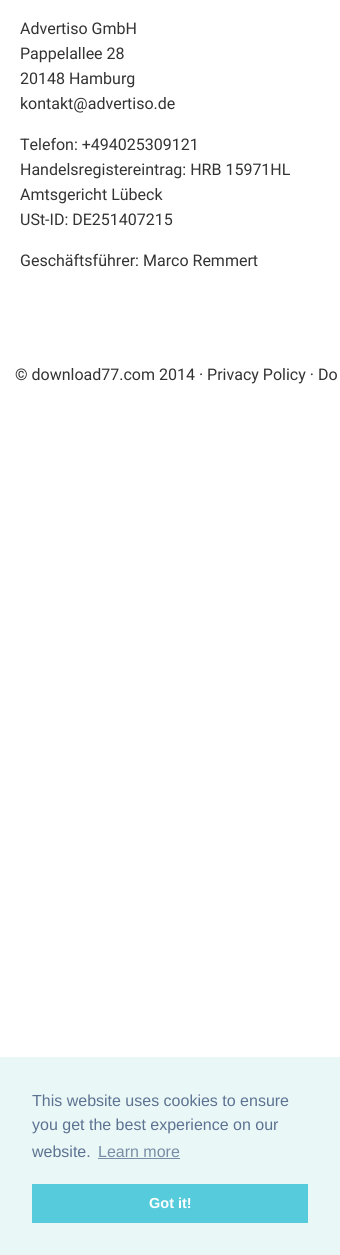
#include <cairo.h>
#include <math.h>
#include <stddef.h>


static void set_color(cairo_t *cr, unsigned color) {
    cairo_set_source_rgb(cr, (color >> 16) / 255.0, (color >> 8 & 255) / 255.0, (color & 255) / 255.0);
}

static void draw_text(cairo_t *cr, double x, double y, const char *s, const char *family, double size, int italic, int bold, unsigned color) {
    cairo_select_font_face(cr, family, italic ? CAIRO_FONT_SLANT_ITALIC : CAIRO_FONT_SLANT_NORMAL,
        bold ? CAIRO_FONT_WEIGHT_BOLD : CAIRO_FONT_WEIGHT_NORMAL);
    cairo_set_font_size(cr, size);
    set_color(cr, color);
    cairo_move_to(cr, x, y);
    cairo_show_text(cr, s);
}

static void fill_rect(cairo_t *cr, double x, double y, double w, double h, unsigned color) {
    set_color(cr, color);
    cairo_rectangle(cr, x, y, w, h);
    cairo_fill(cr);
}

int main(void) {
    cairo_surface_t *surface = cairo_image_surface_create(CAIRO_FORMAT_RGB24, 340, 1255);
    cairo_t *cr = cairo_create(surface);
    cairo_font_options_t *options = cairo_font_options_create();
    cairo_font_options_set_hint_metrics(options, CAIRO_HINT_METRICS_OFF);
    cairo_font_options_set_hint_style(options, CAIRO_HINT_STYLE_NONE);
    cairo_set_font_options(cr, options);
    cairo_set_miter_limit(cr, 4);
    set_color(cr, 0xFFFFFF);
    cairo_paint(cr);
    draw_text(cr, 20, 34, "Advertiso GmbH", "Roboto", 16, 0, 0, 0x333333);
    draw_text(cr, 20, 59, "Pappelallee 28", "Roboto", 16, 0, 0, 0x333333);
    draw_text(cr, 20, 84, "20148 Hamburg", "Roboto", 16, 0, 0, 0x333333);
    draw_text(cr, 20, 109, "kontakt@advertiso.de", "Roboto", 16, 0, 0, 0x333333);
    draw_text(cr, 20, 150, "Telefon: +494025309121", "Roboto", 16, 0, 0, 0x333333);
    draw_text(cr, 20, 175, "Handelsregistereintrag: HRB 15971HL", "Roboto", 16, 0, 0, 0x333333);
    draw_text(cr, 20, 200, "Amtsgericht Lübeck", "Roboto", 16, 0, 0, 0x333333);
    draw_text(cr, 20, 225, "USt-ID: DE251407215", "Roboto", 16, 0, 0, 0x333333);
    draw_text(cr, 20, 266, "Geschäftsführer: Marco Remmert", "Roboto", 16, 0, 0, 0x333333);
    draw_text(cr, 15, 380, "© download77.com 2014 · Privacy Policy · Do", "Roboto", 16, 0, 0, 0x333333);
    fill_rect(cr, 0, 1057, 340, 198, 0xEAF7F7);
    draw_text(cr, 32, 1106, "This website uses cookies to ensure", "Liberation Sans", 16, 0, 0, 0x5C7291);
    draw_text(cr, 32, 1130, "you get the best experience on our", "Liberation Sans", 16, 0, 0, 0x5C7291);
    draw_text(cr, 32, 1157, "website.", "Liberation Sans", 16, 0, 0, 0x5C7291);
    draw_text(cr, 98, 1157, "Learn more", "Liberation Sans", 16, 0, 0, 0x788DA5);
    fill_rect(cr, 98, 1158, 82, 1, 0x788DA5);
    fill_rect(cr, 32, 1184, 276, 39, 0x56CBDB);
    draw_text(cr, 149, 1208, "Got it!", "Liberation Sans", 14.5, 0, 1, 0xFFFFFF);
    cairo_surface_write_to_png(surface, "output.png");
    cairo_font_options_destroy(options);
    cairo_destroy(cr);
    cairo_surface_destroy(surface);
    return 0;
}
